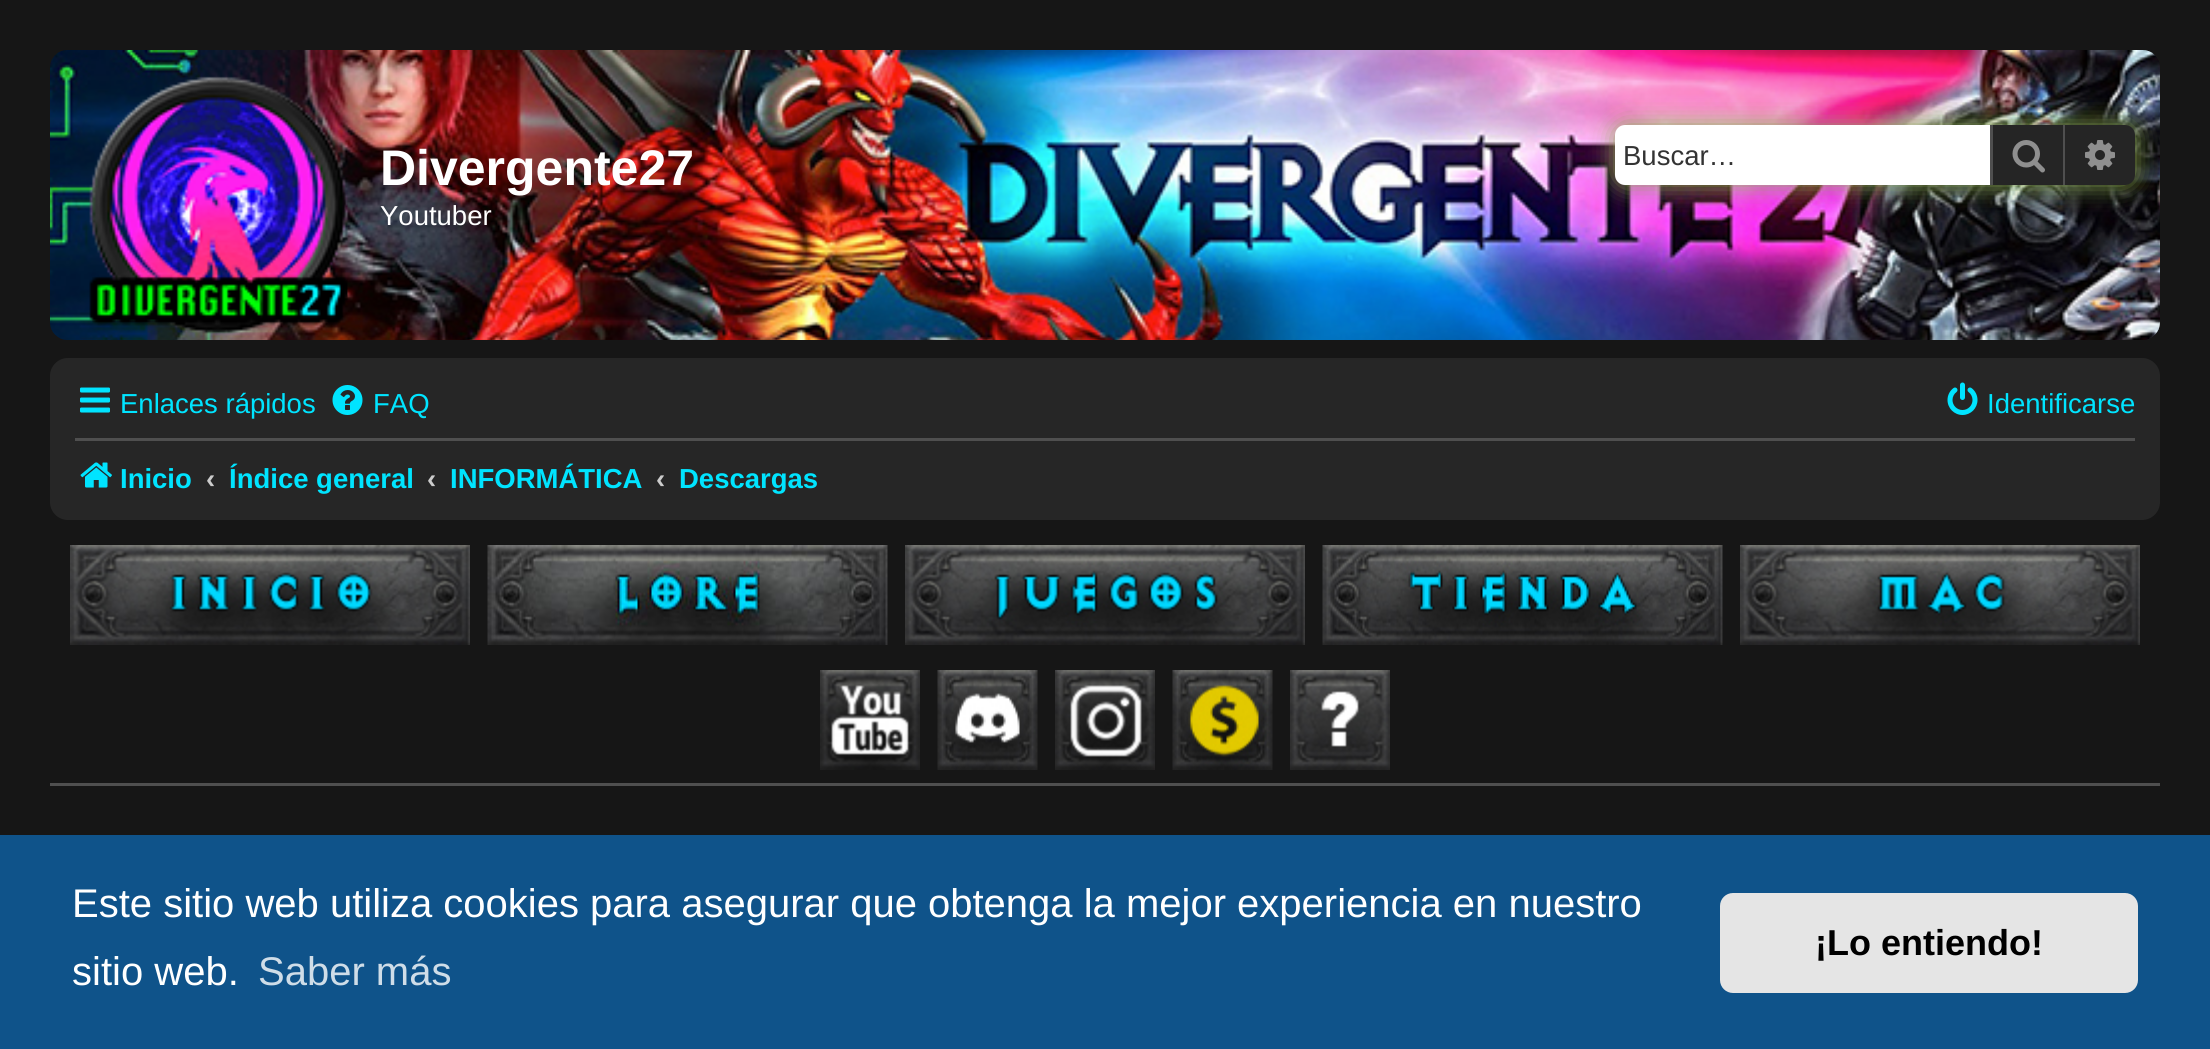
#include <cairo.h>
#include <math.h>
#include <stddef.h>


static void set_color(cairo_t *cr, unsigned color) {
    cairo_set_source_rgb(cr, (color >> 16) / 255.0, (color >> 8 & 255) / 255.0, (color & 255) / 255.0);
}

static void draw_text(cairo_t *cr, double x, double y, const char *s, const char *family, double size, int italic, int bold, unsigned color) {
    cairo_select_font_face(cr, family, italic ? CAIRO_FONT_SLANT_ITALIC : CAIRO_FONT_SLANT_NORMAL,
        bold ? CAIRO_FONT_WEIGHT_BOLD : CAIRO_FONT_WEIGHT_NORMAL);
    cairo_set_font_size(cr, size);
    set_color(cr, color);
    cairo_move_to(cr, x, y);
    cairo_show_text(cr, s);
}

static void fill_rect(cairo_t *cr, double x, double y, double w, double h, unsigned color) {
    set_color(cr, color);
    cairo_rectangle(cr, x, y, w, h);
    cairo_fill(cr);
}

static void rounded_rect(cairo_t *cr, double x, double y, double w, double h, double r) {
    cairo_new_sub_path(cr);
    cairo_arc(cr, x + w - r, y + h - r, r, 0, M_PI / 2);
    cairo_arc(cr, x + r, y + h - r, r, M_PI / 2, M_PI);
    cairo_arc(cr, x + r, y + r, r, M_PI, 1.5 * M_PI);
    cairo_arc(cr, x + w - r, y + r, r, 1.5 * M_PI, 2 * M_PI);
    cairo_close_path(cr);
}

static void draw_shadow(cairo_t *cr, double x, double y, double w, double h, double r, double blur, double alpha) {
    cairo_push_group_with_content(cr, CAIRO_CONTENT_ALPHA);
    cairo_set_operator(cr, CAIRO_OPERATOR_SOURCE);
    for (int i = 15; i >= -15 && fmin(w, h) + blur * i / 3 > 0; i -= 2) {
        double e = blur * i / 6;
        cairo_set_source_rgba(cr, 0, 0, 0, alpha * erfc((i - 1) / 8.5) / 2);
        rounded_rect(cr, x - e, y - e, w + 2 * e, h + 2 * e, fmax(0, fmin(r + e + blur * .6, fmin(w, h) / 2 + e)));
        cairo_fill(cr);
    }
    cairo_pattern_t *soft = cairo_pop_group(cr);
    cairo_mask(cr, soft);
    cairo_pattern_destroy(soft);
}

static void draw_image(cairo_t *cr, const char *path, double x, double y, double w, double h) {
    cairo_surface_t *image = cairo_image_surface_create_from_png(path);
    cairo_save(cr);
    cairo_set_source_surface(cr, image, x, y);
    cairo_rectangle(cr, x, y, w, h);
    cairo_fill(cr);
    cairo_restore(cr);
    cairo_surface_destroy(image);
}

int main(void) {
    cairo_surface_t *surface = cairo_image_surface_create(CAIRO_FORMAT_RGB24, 2210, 1049);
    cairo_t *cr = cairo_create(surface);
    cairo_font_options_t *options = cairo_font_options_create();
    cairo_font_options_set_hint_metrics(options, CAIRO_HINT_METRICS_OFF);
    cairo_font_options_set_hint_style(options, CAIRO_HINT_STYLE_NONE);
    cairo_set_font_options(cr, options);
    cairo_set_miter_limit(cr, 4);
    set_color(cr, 0x161616);
    cairo_paint(cr);
    draw_image(cr, "assets/img1.png", 50, 50, 2110, 290);
    draw_image(cr, "assets/img2.png", 89, 76, 259, 258);
    draw_text(cr, 380, 185, "Divergente27", "Liberation Sans", 50, 0, 1, 0xFFFFFF);
    draw_text(cr, 380, 225, "Youtuber", "Liberation Sans", 27.5, 0, 0, 0xFFFFFF);
    cairo_save(cr);
    rounded_rect(cr, 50, 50, 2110, 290, 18);
    cairo_clip(cr);
    set_color(cr, 0x8CAA54);
    draw_shadow(cr, 1615, 125, 520, 60, 10, 12.5, 1);
    cairo_restore(cr);
    cairo_new_path(cr);
    cairo_move_to(cr, 1625, 125);
    cairo_line_to(cr, 1990, 125);
    cairo_line_to(cr, 1990, 185);
    cairo_line_to(cr, 1625, 185);
    cairo_curve_to(cr, 1619.5, 185, 1615, 180.5, 1615, 175);
    cairo_line_to(cr, 1615, 135);
    cairo_curve_to(cr, 1615, 129.5, 1619.5, 125, 1625, 125);
    cairo_close_path(cr);
    cairo_fill(cr);
    draw_text(cr, 1623, 165, "Buscar…", "Liberation Sans", 27.5, 0, 0, 0x333333);
    fill_rect(cr, 1993, 125, 70, 60, 0x252525);
    fill_rect(cr, 2063, 125, 2, 60, 0x4F4F4F);
    fill_rect(cr, 1990, 125, 3, 60, 0x4F4F4F);
    draw_image(cr, "assets/img3.png", 2012, 140, 33, 33);
    set_color(cr, 0x252525);
    cairo_new_path(cr);
    cairo_move_to(cr, 2065, 125);
    cairo_line_to(cr, 2125, 125);
    cairo_curve_to(cr, 2130.5, 125, 2135, 129.5, 2135, 135);
    cairo_line_to(cr, 2135, 175);
    cairo_curve_to(cr, 2135, 180.5, 2130.5, 185, 2125, 185);
    cairo_line_to(cr, 2065, 185);
    cairo_close_path(cr);
    cairo_fill(cr);
    draw_image(cr, "assets/img4.png", 2085, 140, 30, 30);
    set_color(cr, 0x262626);
    rounded_rect(cr, 50, 358, 2110, 162, 18);
    cairo_fill(cr);
    draw_image(cr, "assets/img5.png", 80, 387, 30, 26);
    draw_text(cr, 120, 413, "Enlaces rápidos", "Liberation Sans", 27.5, 0, 0, 0x00E4FF);
    draw_image(cr, "assets/img6.png", 332, 385, 31, 30);
    draw_text(cr, 373, 413, "FAQ", "Liberation Sans", 27.5, 0, 0, 0x00E4FF);
    draw_image(cr, "assets/img7.png", 1947, 382, 31, 33);
    draw_text(cr, 1987, 413, "Identificarse", "Liberation Sans", 27.5, 0, 0, 0x00E4FF);
    fill_rect(cr, 75, 438, 2060, 3, 0x4F4F4F);
    draw_image(cr, "assets/img8.png", 80, 462, 32, 26);
    draw_text(cr, 120, 488, "Inicio", "Liberation Sans", 27.5, 0, 1, 0x00E4FF);
    draw_text(cr, 206, 488, "‹", "Liberation Sans", 27.5, 0, 1, 0xCCCCCC);
    draw_text(cr, 229, 488, "Índice general", "Liberation Sans", 27.5, 0, 1, 0x00E4FF);
    draw_text(cr, 427, 488, "‹", "Liberation Sans", 27.5, 0, 1, 0xCCCCCC);
    draw_text(cr, 450, 488, "INFORMÁTICA", "Liberation Sans", 27.5, 0, 1, 0x00E4FF);
    draw_text(cr, 656, 488, "‹", "Liberation Sans", 27.5, 0, 1, 0xCCCCCC);
    draw_text(cr, 679, 488, "Descargas", "Liberation Sans", 27.5, 0, 1, 0x00E4FF);
    draw_image(cr, "assets/img9.png", 70, 545, 400, 100);
    draw_image(cr, "assets/img10.png", 487, 545, 401, 100);
    draw_image(cr, "assets/img11.png", 905, 545, 400, 100);
    draw_image(cr, "assets/img12.png", 1322, 545, 401, 100);
    draw_image(cr, "assets/img13.png", 1740, 545, 400, 100);
    draw_image(cr, "assets/img14.png", 820, 670, 100, 100);
    draw_image(cr, "assets/img15.png", 937, 670, 101, 100);
    draw_image(cr, "assets/img16.png", 1055, 670, 100, 100);
    draw_image(cr, "assets/img17.png", 1172, 670, 101, 100);
    draw_image(cr, "assets/img18.png", 1290, 670, 100, 100);
    fill_rect(cr, 50, 783, 2110, 3, 0x4F4F4F);
    fill_rect(cr, 0, 835, 2210, 214, 0x0F538A);
    draw_text(cr, 72, 917, "Este sitio web utiliza cookies para asegurar que obtenga la mejor experiencia en nuestro", "Liberation Sans", 40, 0, 0, 0xFFFFFF);
    draw_text(cr, 72, 985, "sitio web.", "Liberation Sans", 40, 0, 0, 0xFFFFFF);
    draw_text(cr, 258, 985, "Saber más", "Liberation Sans", 40, 0, 0, 0xCFDDE8);
    set_color(cr, 0xE5E5E5);
    rounded_rect(cr, 1720, 893, 418, 100, 13);
    cairo_fill(cr);
    draw_text(cr, 1815, 955, "¡Lo entiendo!", "Liberation Sans", 36, 0, 1, 0x000000);
    cairo_surface_write_to_png(surface, "output.png");
    cairo_font_options_destroy(options);
    cairo_destroy(cr);
    cairo_surface_destroy(surface);
    return 0;
}
